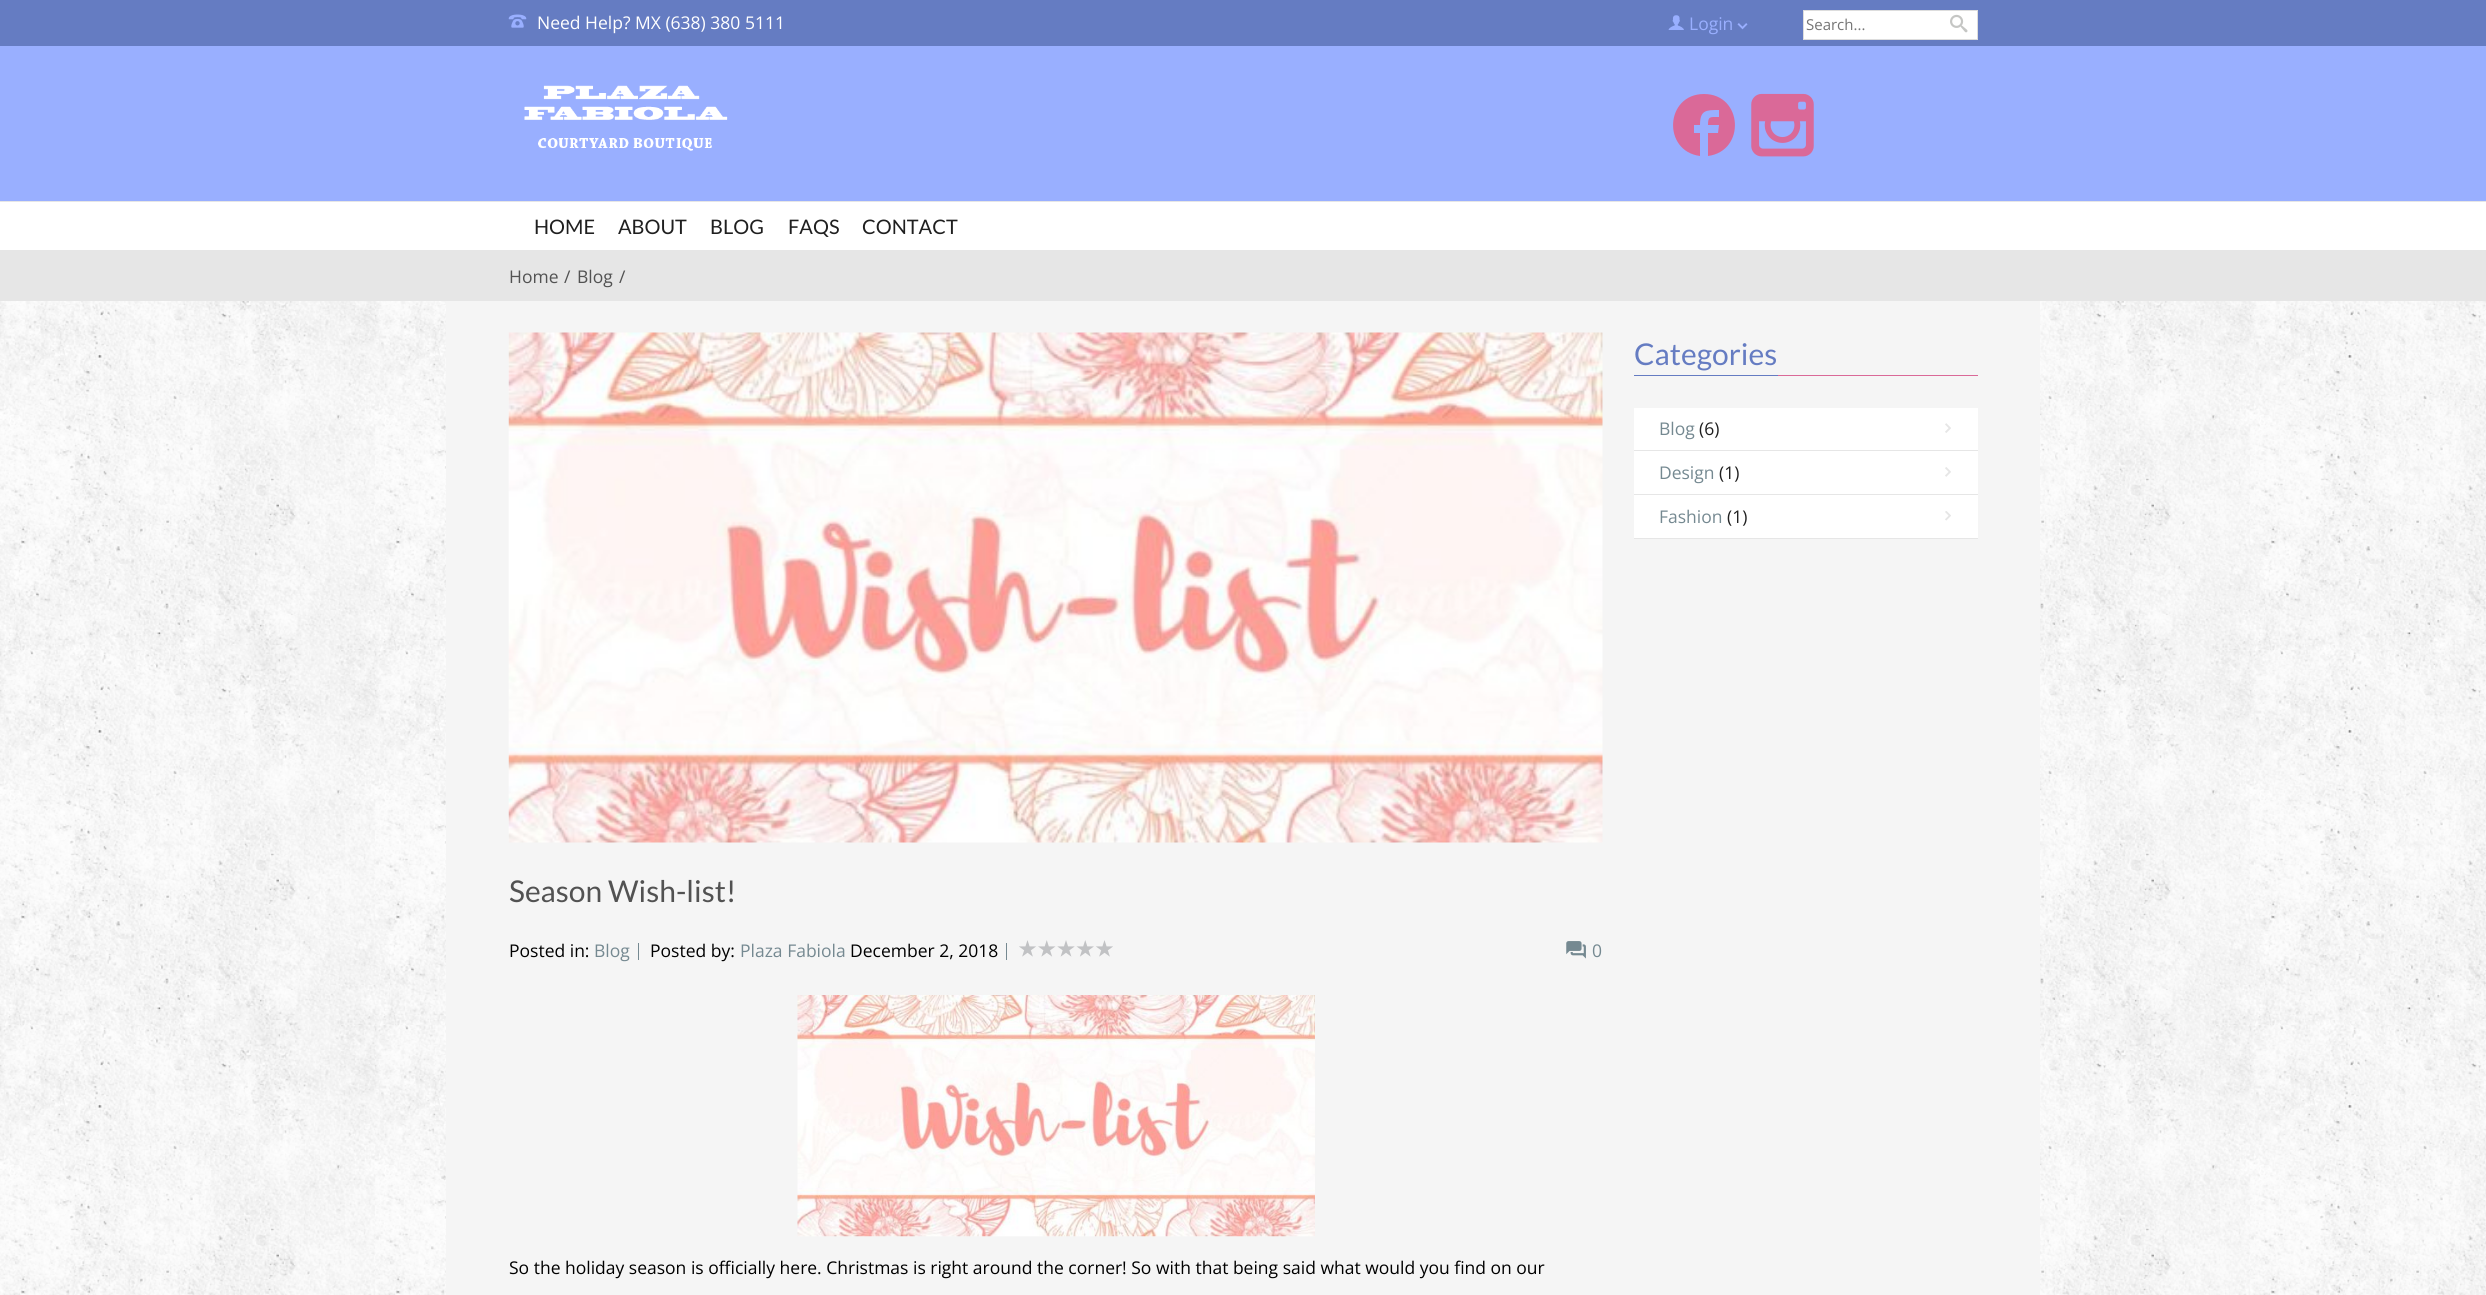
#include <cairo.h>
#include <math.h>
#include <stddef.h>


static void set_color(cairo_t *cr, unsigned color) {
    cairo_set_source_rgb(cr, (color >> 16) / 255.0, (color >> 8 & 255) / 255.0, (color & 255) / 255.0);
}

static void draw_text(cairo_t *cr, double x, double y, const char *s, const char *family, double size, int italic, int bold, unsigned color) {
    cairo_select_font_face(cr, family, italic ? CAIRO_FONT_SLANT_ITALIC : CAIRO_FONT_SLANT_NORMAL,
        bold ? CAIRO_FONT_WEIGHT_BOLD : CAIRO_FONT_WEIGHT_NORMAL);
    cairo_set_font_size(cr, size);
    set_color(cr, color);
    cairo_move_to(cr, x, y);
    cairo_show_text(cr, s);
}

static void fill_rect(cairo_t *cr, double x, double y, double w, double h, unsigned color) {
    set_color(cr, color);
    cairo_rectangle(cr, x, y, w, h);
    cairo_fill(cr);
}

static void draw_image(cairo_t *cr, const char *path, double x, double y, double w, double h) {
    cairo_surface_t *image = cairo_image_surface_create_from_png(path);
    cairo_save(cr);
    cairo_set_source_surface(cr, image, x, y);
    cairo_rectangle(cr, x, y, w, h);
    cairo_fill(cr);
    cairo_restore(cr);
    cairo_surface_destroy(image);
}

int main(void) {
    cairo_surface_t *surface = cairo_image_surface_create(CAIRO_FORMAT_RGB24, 2486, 1295);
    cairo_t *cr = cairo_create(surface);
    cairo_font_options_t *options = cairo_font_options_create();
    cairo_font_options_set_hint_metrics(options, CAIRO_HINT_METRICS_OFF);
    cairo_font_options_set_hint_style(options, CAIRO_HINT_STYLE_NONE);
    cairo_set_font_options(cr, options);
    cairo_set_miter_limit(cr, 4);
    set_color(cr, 0xFFFFFF);
    cairo_paint(cr);
    draw_image(cr, "assets/img1.png", 0, 301, 2486, 994);
    fill_rect(cr, 446, 301, 1594, 994, 0xF5F5F5);
    fill_rect(cr, 0, 0, 2486, 46, 0x657CC2);
    draw_image(cr, "assets/img2.png", 508, 14, 19, 14);
    draw_text(cr, 537, 29, "Need Help? MX (638) 380 5111", "Open Sans", 17.5, 0, 0, 0xFFFFFF);
    draw_image(cr, "assets/img3.png", 1668, 15, 16, 15);
    draw_text(cr, 1689, 30, "Login", "Open Sans", 17.5, 0, 0, 0x99AFFF);
    draw_image(cr, "assets/img4.png", 1737, 23, 11, 7);
    set_color(cr, 0xFFFFFF);
    cairo_rectangle(cr, 1803.5, 10.5, 174, 29);
    cairo_fill_preserve(cr);
    set_color(cr, 0xDDDDDD);
    cairo_set_line_width(cr, 1);
    cairo_stroke(cr);
    draw_text(cr, 1806, 30, "Search...", "Open Sans", 15, 0, 0, 0x757575);
    draw_image(cr, "assets/img5.png", 1950, 14, 18, 19);
    fill_rect(cr, 0, 46, 2486, 155, 0x99AFFF);
    draw_image(cr, "assets/img6.png", 524, 85, 204, 66);
    set_color(cr, 0xDA6998);
    cairo_new_path(cr);
    cairo_move_to(cr, 1704, 94);
    cairo_curve_to(cr, 1743, 94, 1746, 151, 1708, 156);
    cairo_line_to(cr, 1708, 133);
    cairo_line_to(cr, 1718, 133);
    cairo_line_to(cr, 1719, 125);
    cairo_line_to(cr, 1708, 125);
    cairo_curve_to(cr, 1708, 116, 1710, 117, 1719, 117);
    cairo_line_to(cr, 1719, 110);
    cairo_curve_to(cr, 1706, 110, 1700, 110, 1700, 125);
    cairo_line_to(cr, 1694, 125);
    cairo_line_to(cr, 1694, 133);
    cairo_line_to(cr, 1700, 133);
    cairo_line_to(cr, 1700, 156);
    cairo_curve_to(cr, 1662, 151, 1665, 94, 1704, 94);
    cairo_close_path(cr);
    cairo_fill(cr);
    draw_image(cr, "assets/img7.png", 1751, 93, 63, 64);
    fill_rect(cr, 0, 201, 2486, 1, 0xE6E6E6);
    draw_text(cr, 534, 234, "HOME", "Lato", 20, 0, 0, 0x1F1F1F);
    draw_text(cr, 618, 234, "ABOUT", "Lato", 20, 0, 0, 0x1F1F1F);
    draw_text(cr, 710, 234, "BLOG", "Lato", 20, 0, 0, 0x1F1F1F);
    draw_text(cr, 788, 234, "FAQS", "Lato", 20, 0, 0, 0x1F1F1F);
    draw_text(cr, 862, 234, "CONTACT", "Lato", 20, 0, 0, 0x1F1F1F);
    fill_rect(cr, 0, 250, 2486, 51, 0xE6E6E6);
    draw_text(cr, 509, 283, "Home", "Open Sans", 17.5, 0, 0, 0x525252);
    draw_text(cr, 564, 283, "/", "Open Sans", 17.5, 0, 0, 0x525252);
    draw_text(cr, 577, 283, "Blog", "Open Sans", 17.5, 0, 0, 0x525252);
    draw_text(cr, 619, 283, "/", "Open Sans", 17.5, 0, 0, 0x525252);
    fill_rect(cr, 1778, 375, 200, 1, 0xDA6998);
    fill_rect(cr, 1634, 375, 144, 1, 0x657CC2);
    draw_text(cr, 1634, 365, "Categories", "Lato", 30, 0, 0, 0x657CC2);
    fill_rect(cr, 1634, 408, 344, 42, 0xFFFFFF);
    fill_rect(cr, 1634, 450, 344, 1, 0xE6E6E6);
    draw_text(cr, 1659, 435, "Blog", "Open Sans", 17.5, 0, 0, 0x758991);
    draw_text(cr, 1699, 435, "(6)", "Open Sans", 17.5, 0, 0, 0x1F1F1F);
    draw_image(cr, "assets/img8.png", 1945, 423, 6, 10);
    fill_rect(cr, 1634, 451, 344, 43, 0xFFFFFF);
    fill_rect(cr, 1634, 494, 344, 1, 0xE6E6E6);
    draw_text(cr, 1659, 479, "Design", "Open Sans", 17.5, 0, 0, 0x758991);
    draw_text(cr, 1719, 479, "(1)", "Open Sans", 17.5, 0, 0, 0x1F1F1F);
    draw_image(cr, "assets/img9.png", 1945, 467, 6, 10);
    fill_rect(cr, 1634, 495, 344, 43, 0xFFFFFF);
    fill_rect(cr, 1634, 538, 344, 1, 0xE6E6E6);
    draw_text(cr, 1659, 523, "Fashion", "Open Sans", 17.5, 0, 0, 0x758991);
    draw_text(cr, 1727, 523, "(1)", "Open Sans", 17.5, 0, 0, 0x1F1F1F);
    draw_image(cr, "assets/img10.png", 1945, 511, 6, 10);
    draw_image(cr, "assets/img11.png", 508, 332, 1095, 511);
    draw_text(cr, 509, 902, "Season Wish-list!", "Lato", 30, 0, 0, 0x525252);
    fill_rect(cr, 638, 943, 1, 17, 0x758991);
    draw_text(cr, 509, 957, "Posted in:", "Open Sans", 17.5, 0, 0, 0x000000);
    draw_text(cr, 594, 957, "Blog", "Open Sans", 17.5, 0, 0, 0x758991);
    fill_rect(cr, 1006, 943, 1, 17, 0x758991);
    draw_text(cr, 650, 957, "Posted by:", "Open Sans", 17.5, 0, 0, 0x000000);
    draw_text(cr, 740, 957, "Plaza Fabiola", "Open Sans", 17.5, 0, 0, 0x758991);
    draw_text(cr, 850, 957, "December 2, 2018", "Open Sans", 17.5, 0, 0, 0x000000);
    draw_image(cr, "assets/img12.png", 1019, 940, 94, 17);
    draw_image(cr, "assets/img13.png", 1566, 941, 20, 18);
    draw_text(cr, 1592, 957, "0", "Open Sans", 17.5, 0, 0, 0x758991);
    draw_image(cr, "assets/img14.png", 797, 995, 518, 242);
    draw_text(cr, 509, 1274, "So the holiday season is officially here. Christmas is right around the corner! So with that being said what would you find on our", "Open Sans", 17.5, 0, 0, 0x000000);
    cairo_surface_write_to_png(surface, "output.png");
    cairo_font_options_destroy(options);
    cairo_destroy(cr);
    cairo_surface_destroy(surface);
    return 0;
}
